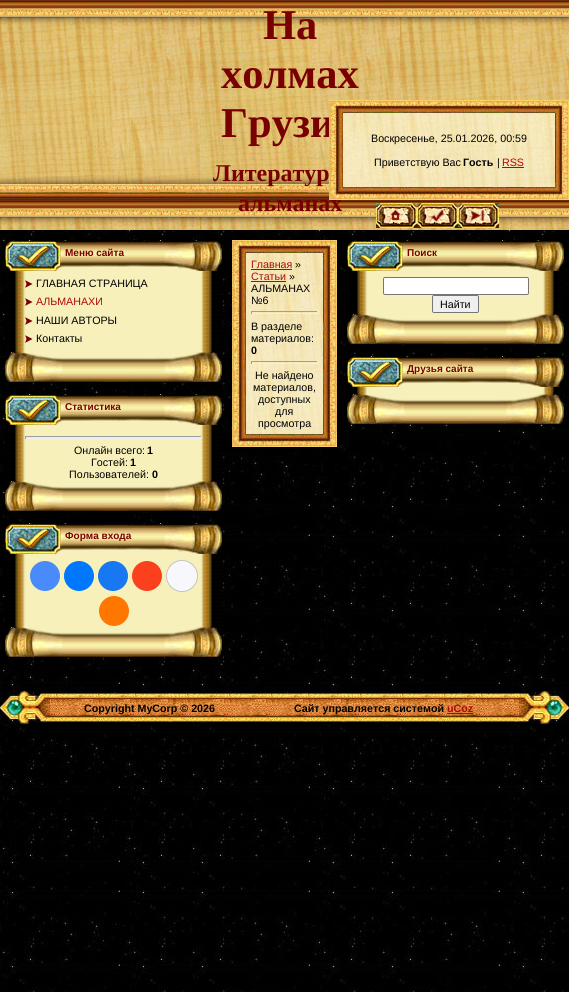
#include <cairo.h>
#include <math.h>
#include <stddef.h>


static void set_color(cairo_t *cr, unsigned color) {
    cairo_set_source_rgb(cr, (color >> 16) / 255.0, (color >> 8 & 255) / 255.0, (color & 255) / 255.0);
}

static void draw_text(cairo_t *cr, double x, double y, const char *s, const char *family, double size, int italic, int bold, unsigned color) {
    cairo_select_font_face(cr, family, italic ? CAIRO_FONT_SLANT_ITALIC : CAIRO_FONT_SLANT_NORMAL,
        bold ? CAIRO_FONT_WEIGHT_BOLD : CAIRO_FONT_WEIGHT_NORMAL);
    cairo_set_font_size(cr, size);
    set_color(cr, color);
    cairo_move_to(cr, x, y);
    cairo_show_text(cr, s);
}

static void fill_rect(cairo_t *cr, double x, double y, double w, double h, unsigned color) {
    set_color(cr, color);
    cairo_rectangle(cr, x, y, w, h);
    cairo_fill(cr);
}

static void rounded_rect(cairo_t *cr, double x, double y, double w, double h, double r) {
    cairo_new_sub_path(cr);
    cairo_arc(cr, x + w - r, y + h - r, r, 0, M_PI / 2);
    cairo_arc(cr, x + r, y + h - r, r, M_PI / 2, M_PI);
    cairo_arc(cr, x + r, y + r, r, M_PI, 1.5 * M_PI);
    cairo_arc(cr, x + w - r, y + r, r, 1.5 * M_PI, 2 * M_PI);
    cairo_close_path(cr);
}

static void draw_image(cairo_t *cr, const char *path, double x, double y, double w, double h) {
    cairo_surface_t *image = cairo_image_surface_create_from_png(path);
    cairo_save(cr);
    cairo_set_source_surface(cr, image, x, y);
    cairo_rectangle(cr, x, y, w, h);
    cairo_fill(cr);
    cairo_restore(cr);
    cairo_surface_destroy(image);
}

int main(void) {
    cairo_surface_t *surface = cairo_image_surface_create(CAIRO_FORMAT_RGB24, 569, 992);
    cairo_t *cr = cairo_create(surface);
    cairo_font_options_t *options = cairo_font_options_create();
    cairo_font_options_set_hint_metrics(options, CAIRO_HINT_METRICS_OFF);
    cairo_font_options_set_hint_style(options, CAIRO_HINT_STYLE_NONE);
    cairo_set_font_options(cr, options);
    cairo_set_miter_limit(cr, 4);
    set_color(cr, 0xFFFFFF);
    cairo_paint(cr);
    draw_image(cr, "assets/img1.png", 0, 230, 569, 762);
    draw_image(cr, "assets/img2.png", 0, 0, 569, 230);
    draw_text(cr, 263, 39, "На", "Liberation Serif", 42.5, 0, 1, 0x790000);
    draw_text(cr, 221, 88, "холмах", "Liberation Serif", 42.5, 0, 1, 0x790000);
    draw_text(cr, 221, 137, "Грузи", "Liberation Serif", 42.5, 0, 1, 0x790000);
    draw_text(cr, 213, 181, "Литератур", "Liberation Serif", 24, 0, 1, 0x790000);
    draw_text(cr, 238, 211, "альманах", "Liberation Serif", 24, 0, 1, 0x790000);
    draw_image(cr, "assets/img3.png", 376, 203, 41, 25);
    draw_image(cr, "assets/img4.png", 417, 203, 41, 25);
    draw_image(cr, "assets/img5.png", 458, 203, 41, 25);
    draw_image(cr, "assets/img6.png", 329, 100, 14, 13);
    draw_image(cr, "assets/img7.png", 343, 100, 212, 13);
    draw_image(cr, "assets/img8.png", 555, 100, 14, 13);
    draw_image(cr, "assets/img9.png", 329, 113, 14, 74);
    draw_image(cr, "assets/img10.png", 343, 113, 212, 74);
    draw_text(cr, 371, 142, "Воскресенье, 25.01.2026, 00:59", "Liberation Sans", 10.7, 0, 0, 0x000000);
    draw_text(cr, 374, 166, "Приветствую Вас", "Liberation Sans", 10.7, 0, 0, 0x000000);
    draw_text(cr, 463, 166, "Гость", "Liberation Sans", 10.7, 0, 1, 0x000000);
    draw_text(cr, 497, 166, "|", "Liberation Sans", 10.7, 0, 0, 0x000000);
    draw_text(cr, 502, 166, "RSS", "Liberation Sans", 10.7, 0, 0, 0xAD090E);
    fill_rect(cr, 502, 167, 22, 1, 0xAD090E);
    draw_image(cr, "assets/img11.png", 555, 113, 14, 74);
    draw_image(cr, "assets/img12.png", 329, 187, 14, 13);
    draw_image(cr, "assets/img13.png", 343, 187, 212, 13);
    draw_image(cr, "assets/img14.png", 555, 187, 14, 13);
    draw_image(cr, "assets/img15.png", 5, 272, 217, 79);
    draw_image(cr, "assets/img16.png", 5, 240, 217, 32);
    draw_text(cr, 65, 256, "Меню сайта", "Liberation Sans", 10, 0, 1, 0x790000);
    draw_image(cr, "assets/img17.png", 25, 280, 8, 8);
    draw_text(cr, 36, 287, "ГЛАВНАЯ СТРАНИЦА", "Liberation Sans", 10.7, 0, 0, 0x000000);
    draw_image(cr, "assets/img18.png", 25, 298, 8, 8);
    draw_text(cr, 36, 305, "АЛЬМАНАХИ", "Liberation Sans", 10.7, 0, 0, 0xAD090E);
    draw_image(cr, "assets/img19.png", 25, 317, 8, 8);
    draw_text(cr, 36, 324, "НАШИ АВТОРЫ", "Liberation Sans", 10.7, 0, 0, 0x000000);
    draw_image(cr, "assets/img20.png", 25, 335, 8, 8);
    draw_text(cr, 36, 342, "Контакты", "Liberation Sans", 10.7, 0, 0, 0x000000);
    draw_image(cr, "assets/img21.png", 5, 351, 217, 31);
    draw_image(cr, "assets/img22.png", 5, 426, 217, 54);
    draw_image(cr, "assets/img16.png", 5, 394, 217, 32);
    draw_text(cr, 65, 410, "Статистика", "Liberation Sans", 10, 0, 1, 0x790000);
    fill_rect(cr, 25, 436, 177, 1, 0x9F9F9F);
    fill_rect(cr, 201, 436, 1, 3, 0xEEEEEE);
    fill_rect(cr, 25, 438, 177, 1, 0xEEEEEE);
    fill_rect(cr, 25, 436, 1, 3, 0x9F9F9F);
    draw_text(cr, 74, 454, "Онлайн всего:", "Liberation Sans", 10.7, 0, 0, 0x000000);
    draw_text(cr, 147, 454, "1", "Liberation Sans", 10.7, 0, 1, 0x000000);
    draw_text(cr, 91, 466, "Гостей:", "Liberation Sans", 10.7, 0, 0, 0x000000);
    draw_text(cr, 130, 466, "1", "Liberation Sans", 10.7, 0, 1, 0x000000);
    draw_text(cr, 69, 478, "Пользователей:", "Liberation Sans", 10.7, 0, 0, 0x000000);
    draw_text(cr, 152, 478, "0", "Liberation Sans", 10.7, 0, 1, 0x000000);
    draw_image(cr, "assets/img21.png", 5, 480, 217, 31);
    draw_image(cr, "assets/img23.png", 5, 555, 217, 71);
    draw_image(cr, "assets/img16.png", 5, 523, 217, 32);
    draw_text(cr, 65, 539, "Форма входа", "Liberation Sans", 10, 0, 1, 0x790000);
    set_color(cr, 0x498BFA);
    cairo_new_path(cr);
    cairo_arc(cr, 45, 576, 15, 0, 2 * M_PI);
    cairo_fill(cr);
    set_color(cr, 0x0077FF);
    cairo_arc(cr, 79, 576, 15, 0, 2 * M_PI);
    cairo_fill(cr);
    set_color(cr, 0x1877F2);
    cairo_arc(cr, 113, 576, 15, 0, 2 * M_PI);
    cairo_fill(cr);
    set_color(cr, 0xFC3F1D);
    cairo_arc(cr, 147, 576, 15, 0, 2 * M_PI);
    cairo_fill(cr);
    set_color(cr, 0xF8F8FC);
    cairo_arc(cr, 182, 576, 15.5, 0, 2 * M_PI);
    cairo_fill_preserve(cr);
    set_color(cr, 0xC4C4C4);
    cairo_set_line_width(cr, 1);
    cairo_stroke(cr);
    set_color(cr, 0xFF7700);
    cairo_arc(cr, 114, 611, 15, 0, 2 * M_PI);
    cairo_fill(cr);
    draw_image(cr, "assets/img21.png", 5, 626, 217, 31);
    draw_image(cr, "assets/img6.png", 232, 240, 14, 13);
    draw_image(cr, "assets/img24.png", 246, 240, 77, 13);
    draw_image(cr, "assets/img8.png", 323, 240, 14, 13);
    draw_image(cr, "assets/img25.png", 232, 253, 14, 181);
    draw_image(cr, "assets/img26.png", 246, 253, 77, 181);
    draw_text(cr, 251, 268, "Главная", "Liberation Sans", 10.7, 0, 0, 0xAD090E);
    fill_rect(cr, 251, 269, 41, 1, 0xAD090E);
    draw_text(cr, 295, 268, "»", "Liberation Sans", 10.7, 0, 0, 0x000000);
    draw_text(cr, 251, 280, "Статьи", "Liberation Sans", 10.7, 0, 0, 0xAD090E);
    fill_rect(cr, 251, 281, 35, 1, 0xAD090E);
    draw_text(cr, 289, 280, "»", "Liberation Sans", 10.7, 0, 0, 0x000000);
    draw_text(cr, 251, 292, "АЛЬМАНАХ", "Liberation Sans", 10.7, 0, 0, 0x000000);
    draw_text(cr, 251, 304, "№6", "Liberation Sans", 10.7, 0, 0, 0x000000);
    fill_rect(cr, 251, 311, 67, 1, 0x9F9F9F);
    fill_rect(cr, 317, 311, 1, 3, 0xEEEEEE);
    fill_rect(cr, 251, 313, 67, 1, 0xEEEEEE);
    fill_rect(cr, 251, 311, 1, 3, 0x9F9F9F);
    draw_text(cr, 251, 330, "В разделе", "Liberation Sans", 10.7, 0, 0, 0x000000);
    draw_text(cr, 251, 342, "материалов:", "Liberation Sans", 10.7, 0, 0, 0x000000);
    draw_text(cr, 251, 354, "0", "Liberation Sans", 10.7, 0, 1, 0x000000);
    fill_rect(cr, 251, 361, 67, 1, 0x9F9F9F);
    fill_rect(cr, 317, 361, 1, 3, 0xEEEEEE);
    fill_rect(cr, 251, 363, 67, 1, 0xEEEEEE);
    fill_rect(cr, 251, 361, 1, 3, 0x9F9F9F);
    draw_text(cr, 255, 379, "Не найдено", "Liberation Sans", 10.7, 0, 0, 0x000000);
    draw_text(cr, 253, 391, "материалов,", "Liberation Sans", 10.7, 0, 0, 0x000000);
    draw_text(cr, 258, 403, "доступных", "Liberation Sans", 10.7, 0, 0, 0x000000);
    draw_text(cr, 275, 415, "для", "Liberation Sans", 10.7, 0, 0, 0x000000);
    draw_text(cr, 258, 427, "просмотра", "Liberation Sans", 10.7, 0, 0, 0x000000);
    draw_image(cr, "assets/img27.png", 323, 253, 14, 181);
    draw_image(cr, "assets/img12.png", 232, 434, 14, 13);
    draw_image(cr, "assets/img28.png", 246, 434, 77, 13);
    draw_image(cr, "assets/img14.png", 323, 434, 14, 13);
    draw_image(cr, "assets/img29.png", 347, 272, 217, 41);
    draw_image(cr, "assets/img16.png", 347, 240, 217, 32);
    draw_text(cr, 407, 256, "Поиск", "Liberation Sans", 10, 0, 1, 0x790000);
    set_color(cr, 0xFFFFFF);
    rounded_rect(cr, 383.5, 277.5, 145, 17, 1.5);
    cairo_fill_preserve(cr);
    set_color(cr, 0x767676);
    cairo_stroke(cr);
    set_color(cr, 0xEFEFEF);
    rounded_rect(cr, 432.5, 295.5, 46, 17, 1.5);
    cairo_fill_preserve(cr);
    set_color(cr, 0x767676);
    cairo_stroke(cr);
    draw_text(cr, 440, 308, "Найти", "Liberation Sans", 10.7, 0, 0, 0x000000);
    draw_image(cr, "assets/img21.png", 347, 313, 217, 31);
    draw_image(cr, "assets/img30.png", 347, 388, 217, 5);
    draw_image(cr, "assets/img16.png", 347, 356, 217, 32);
    draw_text(cr, 407, 372, "Друзья сайта", "Liberation Sans", 10, 0, 1, 0x790000);
    draw_image(cr, "assets/img21.png", 347, 393, 217, 31);
    draw_image(cr, "assets/img31.png", 50, 691, 469, 33);
    draw_image(cr, "assets/img32.png", 0, 691, 50, 33);
    draw_text(cr, 84, 712, "Copyright MyCorp © 2026", "Liberation Sans", 10.7, 0, 1, 0x000000);
    draw_text(cr, 294, 712, "Сайт управляется системой", "Liberation Sans", 10.7, 0, 1, 0x000000);
    draw_text(cr, 447, 712, "uCoz", "Liberation Sans", 10.7, 0, 1, 0xAD090E);
    fill_rect(cr, 447, 713, 26, 1, 0xAD090E);
    draw_image(cr, "assets/img33.png", 519, 691, 50, 33);
    cairo_surface_write_to_png(surface, "output.png");
    cairo_font_options_destroy(options);
    cairo_destroy(cr);
    cairo_surface_destroy(surface);
    return 0;
}
